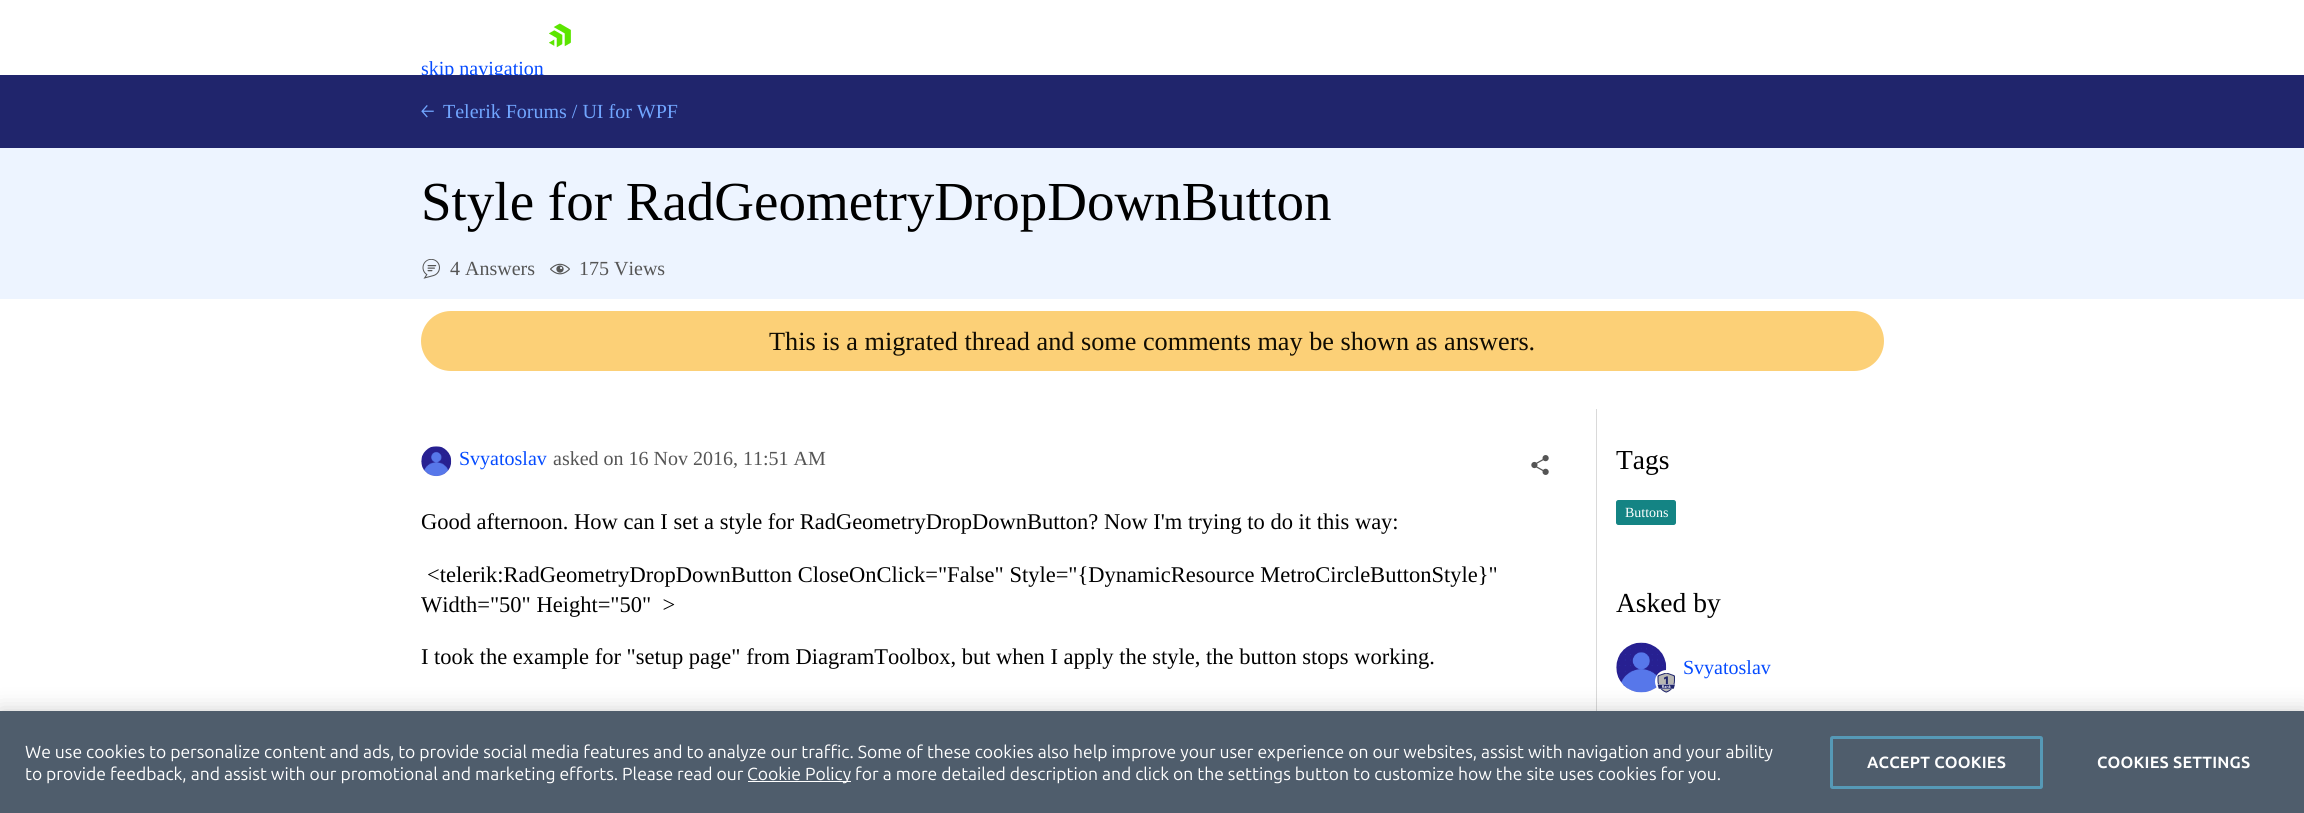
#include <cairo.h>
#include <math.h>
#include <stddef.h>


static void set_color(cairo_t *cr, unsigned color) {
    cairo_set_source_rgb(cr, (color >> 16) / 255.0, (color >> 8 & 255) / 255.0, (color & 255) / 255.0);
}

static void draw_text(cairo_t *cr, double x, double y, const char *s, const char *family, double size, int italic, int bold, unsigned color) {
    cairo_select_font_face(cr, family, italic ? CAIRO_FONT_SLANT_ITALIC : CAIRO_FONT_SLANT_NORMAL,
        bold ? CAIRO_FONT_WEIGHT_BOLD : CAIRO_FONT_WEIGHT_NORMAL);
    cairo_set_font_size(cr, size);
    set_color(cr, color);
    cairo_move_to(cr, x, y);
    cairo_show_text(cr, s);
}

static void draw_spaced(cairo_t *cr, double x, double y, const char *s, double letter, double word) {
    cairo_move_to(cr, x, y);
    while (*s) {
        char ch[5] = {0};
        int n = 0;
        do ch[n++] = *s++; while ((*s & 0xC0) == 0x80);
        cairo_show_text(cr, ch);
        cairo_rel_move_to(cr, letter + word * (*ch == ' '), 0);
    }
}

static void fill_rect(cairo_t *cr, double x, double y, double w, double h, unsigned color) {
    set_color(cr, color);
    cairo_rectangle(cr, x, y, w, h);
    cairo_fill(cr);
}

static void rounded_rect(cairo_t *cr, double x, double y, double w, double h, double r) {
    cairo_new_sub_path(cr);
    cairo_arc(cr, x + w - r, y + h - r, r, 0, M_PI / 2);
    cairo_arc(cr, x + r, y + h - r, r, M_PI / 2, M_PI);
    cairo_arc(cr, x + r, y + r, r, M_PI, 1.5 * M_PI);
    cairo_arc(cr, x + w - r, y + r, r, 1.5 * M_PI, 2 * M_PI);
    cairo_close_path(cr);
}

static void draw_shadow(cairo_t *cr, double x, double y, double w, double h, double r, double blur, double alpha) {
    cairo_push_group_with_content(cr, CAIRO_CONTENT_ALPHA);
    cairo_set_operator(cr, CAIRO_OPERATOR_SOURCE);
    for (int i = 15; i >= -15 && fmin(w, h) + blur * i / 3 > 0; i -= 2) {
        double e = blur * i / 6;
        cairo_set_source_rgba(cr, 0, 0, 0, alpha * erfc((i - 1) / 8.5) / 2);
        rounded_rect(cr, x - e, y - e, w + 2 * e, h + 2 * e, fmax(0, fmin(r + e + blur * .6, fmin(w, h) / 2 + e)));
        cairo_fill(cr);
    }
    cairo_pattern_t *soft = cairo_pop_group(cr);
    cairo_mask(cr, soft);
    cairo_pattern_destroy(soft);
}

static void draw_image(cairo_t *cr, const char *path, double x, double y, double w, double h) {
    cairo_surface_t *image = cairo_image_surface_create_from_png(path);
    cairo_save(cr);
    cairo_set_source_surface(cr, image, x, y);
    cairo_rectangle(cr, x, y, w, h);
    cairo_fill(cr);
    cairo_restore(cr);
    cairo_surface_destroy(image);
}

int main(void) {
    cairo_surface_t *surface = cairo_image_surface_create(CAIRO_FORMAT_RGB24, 2304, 813);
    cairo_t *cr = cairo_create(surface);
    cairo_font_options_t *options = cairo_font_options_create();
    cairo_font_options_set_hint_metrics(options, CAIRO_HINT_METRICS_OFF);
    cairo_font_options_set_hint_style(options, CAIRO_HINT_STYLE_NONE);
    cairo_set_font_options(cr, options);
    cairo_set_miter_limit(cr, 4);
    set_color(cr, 0xFFFFFF);
    cairo_paint(cr);
    draw_image(cr, "assets/img1.png", 549, 23, 22, 25);
    cairo_save(cr);
    cairo_rectangle(cr, 0, 0, 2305, 75);
    cairo_clip(cr);
    draw_text(cr, 421, 75, "skip navigation", "Liberation Serif", 20, 0, 0, 0x054BFF);
    cairo_restore(cr);
    fill_rect(cr, 0, 75, 2304, 73, 0x20256C);
    draw_image(cr, "assets/img2.png", 421, 105, 13, 13);
    draw_text(cr, 443, 118, "Telerik Forums / UI for WPF", "Liberation Serif", 20, 0, 0, 0x71A6FF);
    fill_rect(cr, 0, 148, 2304, 151, 0xEDF4FF);
    draw_text(cr, 421, 220, "Style for RadGeometryDropDownButton", "Liberation Serif", 55, 0, 0, 0x000000);
    draw_image(cr, "assets/img3.png", 422, 259, 18, 20);
    draw_text(cr, 450, 275, "4 Answers", "Liberation Serif", 20, 0, 0, 0x555555);
    draw_image(cr, "assets/img4.png", 550, 263, 20, 12);
    draw_text(cr, 579, 275, "175 Views", "Liberation Serif", 20, 0, 0, 0x555555);
    set_color(cr, 0xFCD077);
    rounded_rect(cr, 421, 311, 1463, 60, 30);
    cairo_fill(cr);
    draw_text(cr, 769, 350, "This is a migrated thread and some comments may be shown as answers.", "Liberation Serif", 26.25, 0, 0, 0x100C02);
    draw_image(cr, "assets/img5.png", 421, 446, 31, 31);
    draw_text(cr, 459, 465, "Svyatoslav", "Liberation Serif", 20, 0, 0, 0x054BFF);
    draw_text(cr, 553, 465, "asked on 16 Nov 2016, 11:51 AM", "Liberation Serif", 20, 0, 0, 0x555555);
    draw_image(cr, "assets/img6.png", 1531, 455, 18, 20);
    draw_text(cr, 421, 529, "Good afternoon. How can I set a style for RadGeometryDropDownButton? Now I'm trying to do it this way:", "Liberation Serif", 22.5, 0, 0, 0x000000);
    draw_text(cr, 427, 582, "<telerik:RadGeometryDropDownButton CloseOnClick=\"False\" Style=\"{DynamicResource MetroCircleButtonStyle}\"", "Liberation Serif", 22.5, 0, 0, 0x000000);
    draw_text(cr, 421, 612, "Width=\"50\" Height=\"50\"  >", "Liberation Serif", 22.5, 0, 0, 0x000000);
    draw_text(cr, 421, 664, "I took the example for \"setup page\" from DiagramToolbox, but when I apply the style, the button stops working.", "Liberation Serif", 22.5, 0, 0, 0x000000);
    fill_rect(cr, 1596, 409, 1, 302, 0xD9D9D9);
    draw_text(cr, 1616, 469, "Tags", "Liberation Serif", 27.5, 0, 0, 0x000000);
    set_color(cr, 0x148484);
    rounded_rect(cr, 1616.5, 500.5, 59, 24, 2);
    cairo_fill_preserve(cr);
    cairo_set_line_width(cr, 1);
    cairo_stroke(cr);
    draw_text(cr, 1625, 517, "Buttons", "Liberation Serif", 14, 0, 0, 0xFFFFFF);
    draw_text(cr, 1616, 612, "Asked by", "Liberation Serif", 27.5, 0, 0, 0x000000);
    draw_image(cr, "assets/img7.png", 1616, 642, 51, 51);
    set_color(cr, 0xFFFFFF);
    cairo_arc(cr, 1666.5, 681.5, 11.5, 0, 2 * M_PI);
    cairo_fill(cr);
    draw_image(cr, "assets/img8.png", 1657, 673, 18, 20);
    draw_text(cr, 1683, 674, "Svyatoslav", "Liberation Serif", 20, 0, 0, 0x054BFF);
    set_color(cr, 0x000000);
    draw_shadow(cr, 0, 711, 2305, 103, 0, 11, 0.2);
    fill_rect(cr, 0, 711, 2304, 102, 0x4F5D6C);
    draw_text(cr, 25, 758, "We use cookies to personalize content and ads, to provide social media features and to analyze our traffic. Some of these cookies also help improve your user experience on our websites, assist with navigation and your ability", "Ubuntu", 17.5, 0, 0, 0xFFFFFF);
    draw_text(cr, 25, 780, "to provide feedback, and assist with our promotional and marketing efforts. Please read our", "Ubuntu", 17.5, 0, 0, 0xFFFFFF);
    fill_rect(cr, 748, 781, 103, 1, 0xFFFFFF);
    draw_text(cr, 747, 780, "Cookie Policy for a more detailed description and click on the settings button to customize how the site uses cookies for you.", "Ubuntu", 17.5, 0, 0, 0xFFFFFF);
    rounded_rect(cr, 1831.5, 737.5, 210, 50, 1);
    set_color(cr, 0x5699B6);
    cairo_set_line_width(cr, 3);
    cairo_stroke(cr);
    cairo_select_font_face(cr, "Ubuntu", CAIRO_FONT_SLANT_NORMAL, CAIRO_FONT_WEIGHT_BOLD);
    cairo_set_font_size(cr, 16.25);
    set_color(cr, 0xFFFFFF);
    draw_spaced(cr, 1867, 768, "ACCEPT COOKIES", 0.2, 0);
    draw_spaced(cr, 2097, 768, "COOKIES SETTINGS", 0.2, 0);
    cairo_surface_write_to_png(surface, "output.png");
    cairo_font_options_destroy(options);
    cairo_destroy(cr);
    cairo_surface_destroy(surface);
    return 0;
}
